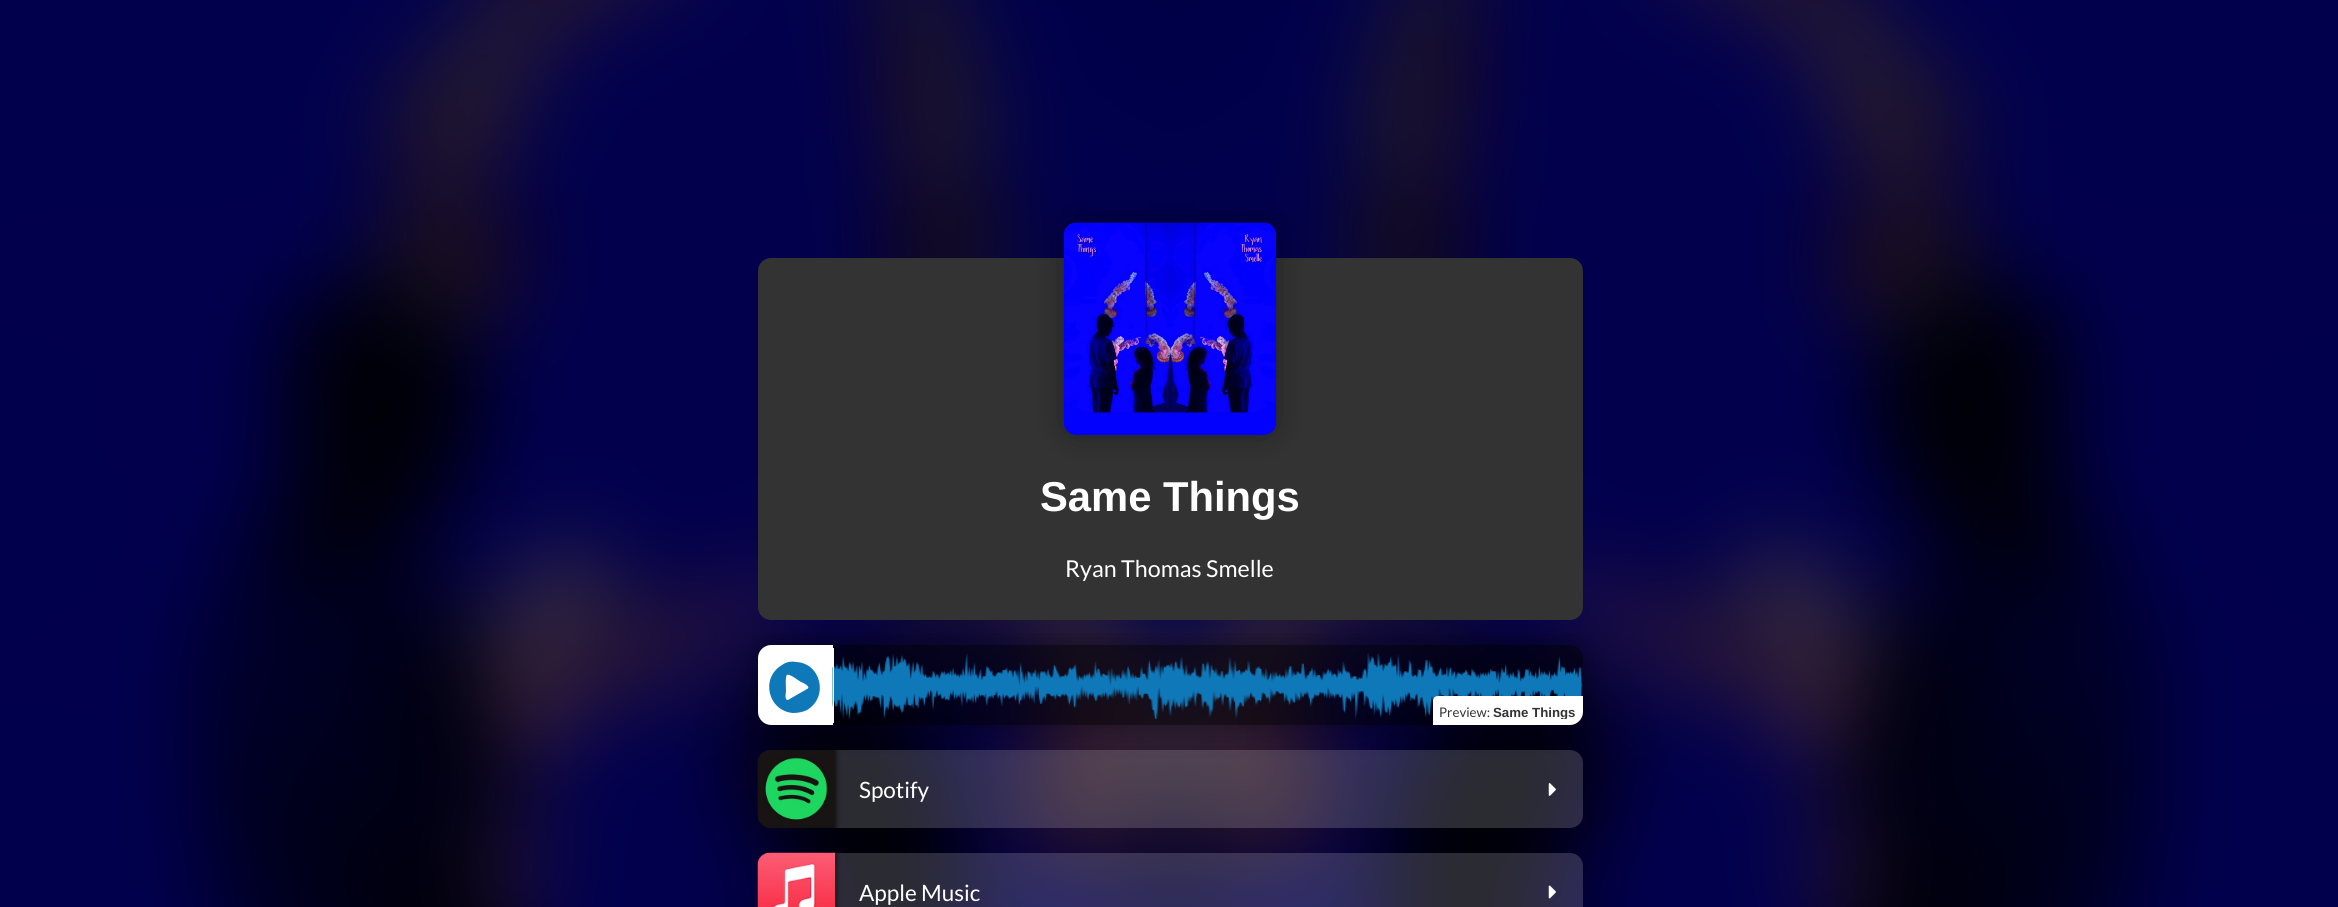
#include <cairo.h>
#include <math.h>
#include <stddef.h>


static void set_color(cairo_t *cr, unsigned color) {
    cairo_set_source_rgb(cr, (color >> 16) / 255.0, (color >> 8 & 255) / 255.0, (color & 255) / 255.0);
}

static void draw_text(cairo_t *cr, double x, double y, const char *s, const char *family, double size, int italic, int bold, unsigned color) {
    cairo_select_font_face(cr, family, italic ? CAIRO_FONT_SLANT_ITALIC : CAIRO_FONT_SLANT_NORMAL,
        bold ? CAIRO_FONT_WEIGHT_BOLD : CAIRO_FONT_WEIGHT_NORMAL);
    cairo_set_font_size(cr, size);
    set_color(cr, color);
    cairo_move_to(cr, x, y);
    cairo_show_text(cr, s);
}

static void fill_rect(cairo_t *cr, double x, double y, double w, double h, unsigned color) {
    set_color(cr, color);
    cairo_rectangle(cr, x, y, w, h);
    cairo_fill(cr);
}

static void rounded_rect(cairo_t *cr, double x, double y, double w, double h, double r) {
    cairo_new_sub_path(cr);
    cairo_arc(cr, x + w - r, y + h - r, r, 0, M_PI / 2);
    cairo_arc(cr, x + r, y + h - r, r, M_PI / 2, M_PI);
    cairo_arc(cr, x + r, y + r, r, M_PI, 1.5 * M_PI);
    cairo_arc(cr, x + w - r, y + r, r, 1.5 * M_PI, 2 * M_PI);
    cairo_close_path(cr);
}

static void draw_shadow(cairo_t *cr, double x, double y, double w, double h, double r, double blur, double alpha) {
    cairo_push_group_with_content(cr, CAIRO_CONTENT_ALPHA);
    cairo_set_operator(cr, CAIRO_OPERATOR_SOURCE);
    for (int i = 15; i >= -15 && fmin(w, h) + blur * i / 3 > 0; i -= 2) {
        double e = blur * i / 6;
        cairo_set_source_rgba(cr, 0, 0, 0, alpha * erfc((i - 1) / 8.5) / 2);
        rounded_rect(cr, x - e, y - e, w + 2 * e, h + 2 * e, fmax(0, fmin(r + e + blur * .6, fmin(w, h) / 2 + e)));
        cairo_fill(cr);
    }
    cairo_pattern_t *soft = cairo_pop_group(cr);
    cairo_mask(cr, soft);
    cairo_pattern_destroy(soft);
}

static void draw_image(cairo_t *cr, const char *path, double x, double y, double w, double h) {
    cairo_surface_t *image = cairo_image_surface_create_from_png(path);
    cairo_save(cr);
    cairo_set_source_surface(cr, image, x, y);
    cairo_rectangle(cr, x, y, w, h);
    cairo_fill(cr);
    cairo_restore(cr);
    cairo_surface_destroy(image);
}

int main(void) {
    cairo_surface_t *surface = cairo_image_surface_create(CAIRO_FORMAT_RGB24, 2338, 907);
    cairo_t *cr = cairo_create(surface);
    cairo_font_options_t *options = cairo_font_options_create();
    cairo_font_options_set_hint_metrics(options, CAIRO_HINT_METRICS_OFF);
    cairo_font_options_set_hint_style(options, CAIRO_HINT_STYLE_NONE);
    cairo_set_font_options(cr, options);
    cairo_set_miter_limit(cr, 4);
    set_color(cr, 0x000000);
    cairo_paint(cr);
    draw_image(cr, "assets/img1.png", 0, 0, 2338, 907);
    set_color(cr, 0x333333);
    rounded_rect(cr, 758, 258, 825, 362, 13);
    cairo_fill(cr);
    set_color(cr, 0x000000);
    draw_shadow(cr, 1064, 223, 212, 212, 13, 15.5, 0.35);
    draw_image(cr, "assets/img2.png", 1063, 222, 214, 213);
    draw_text(cr, 1040, 511, "Same Things", "Liberation Sans", 41.75, 0, 1, 0xFFFFFF);
    draw_text(cr, 1065, 577, "Ryan Thomas Smelle", "Lato", 23.25, 0, 0, 0xFFFFFF);
    cairo_set_source_rgba(cr, 1, 1, 1, 0.17);
    rounded_rect(cr, 758, 750, 825, 78, 13);
    cairo_fill(cr);
    cairo_save(cr);
    rounded_rect(cr, 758, 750, 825, 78, 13);
    cairo_clip(cr);
    set_color(cr, 0x000000);
    draw_shadow(cr, 758, 750, 77, 78, 0, 3, 1);
    cairo_restore(cr);
    draw_image(cr, "assets/img4.png", 757, 750, 78, 78);
    cairo_save(cr);
    cairo_rectangle(cr, 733, 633, 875, 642);
    cairo_clip(cr);
    cairo_set_fill_rule(cr, CAIRO_FILL_RULE_EVEN_ODD);
    cairo_new_path(cr);
    cairo_move_to(cr, 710, 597);
    cairo_line_to(cr, 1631, 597);
    cairo_line_to(cr, 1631, 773);
    cairo_line_to(cr, 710, 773);
    cairo_close_path(cr);
    cairo_move_to(cr, 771, 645);
    cairo_line_to(cr, 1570, 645);
    cairo_curve_to(cr, 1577, 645, 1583, 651, 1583, 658);
    cairo_line_to(cr, 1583, 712);
    cairo_curve_to(cr, 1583, 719, 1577, 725, 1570, 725);
    cairo_line_to(cr, 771, 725);
    cairo_curve_to(cr, 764, 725, 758, 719, 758, 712);
    cairo_line_to(cr, 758, 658);
    cairo_curve_to(cr, 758, 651, 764, 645, 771, 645);
    cairo_close_path(cr);
    cairo_clip(cr);
    set_color(cr, 0x000000);
    draw_shadow(cr, 758, 645, 825, 80, 13, 15.5, 0.35);
    cairo_restore(cr);
    set_color(cr, 0xFFFFFF);
    cairo_new_path(cr);
    cairo_move_to(cr, 771, 645);
    cairo_line_to(cr, 833, 645);
    cairo_line_to(cr, 833, 725);
    cairo_line_to(cr, 771, 725);
    cairo_curve_to(cr, 764, 725, 758, 719, 758, 712);
    cairo_line_to(cr, 758, 658);
    cairo_curve_to(cr, 758, 651, 764, 645, 771, 645);
    cairo_close_path(cr);
    cairo_fill(cr);
    set_color(cr, 0x0F78B8);
    cairo_new_path(cr);
    cairo_move_to(cr, 782, 665);
    cairo_curve_to(cr, 786, 662, 791, 661, 796, 662);
    cairo_curve_to(cr, 821, 663, 829, 697, 807, 710);
    cairo_curve_to(cr, 803, 712, 798, 713, 793, 713);
    cairo_curve_to(cr, 768, 711, 760, 678, 782, 665);
    cairo_close_path(cr);
    cairo_move_to(cr, 807, 689);
    cairo_curve_to(cr, 812, 687, 802, 682, 801, 682);
    cairo_curve_to(cr, 799, 681, 789, 673, 787, 675);
    cairo_curve_to(cr, 785, 676, 786, 688, 786, 691);
    cairo_curve_to(cr, 786, 693, 784, 700, 788, 700);
    cairo_close_path(cr);
    cairo_fill(cr);
    cairo_set_source_rgba(cr, 0, 0, 0, 0.5);
    cairo_new_path(cr);
    cairo_move_to(cr, 833, 645);
    cairo_line_to(cr, 1570, 645);
    cairo_curve_to(cr, 1577, 645, 1583, 651, 1583, 658);
    cairo_line_to(cr, 1583, 712);
    cairo_curve_to(cr, 1583, 719, 1577, 725, 1570, 725);
    cairo_line_to(cr, 833, 725);
    cairo_close_path(cr);
    cairo_fill(cr);
    draw_image(cr, "assets/img3.png", 832, 652, 751, 68);
    fill_rect(cr, 833, 648, 1, 75, 0xFFFFFF);
    cairo_new_path(cr);
    cairo_move_to(cr, 1438, 696);
    cairo_line_to(cr, 1583, 696);
    cairo_line_to(cr, 1583, 712);
    cairo_curve_to(cr, 1583, 719, 1577, 725, 1570, 725);
    cairo_line_to(cr, 1433, 725);
    cairo_line_to(cr, 1433, 701);
    cairo_curve_to(cr, 1433, 698, 1435, 696, 1438, 696);
    cairo_close_path(cr);
    cairo_fill(cr);
    draw_text(cr, 1439, 717, "Preview:", "Lato", 13.25, 0, 0, 0x333333);
    cairo_save(cr);
    cairo_rectangle(cr, 1439, 703, 137, 16);
    cairo_clip(cr);
    draw_text(cr, 1493, 717, "Same Things", "Liberation Sans", 13.25, 0, 1, 0x333333);
    cairo_restore(cr);
    draw_text(cr, 859, 798, "Spotify", "Lato", 22.5, 0, 0, 0xFFFFFF);
    draw_image(cr, "assets/img5.png", 1548, 783, 8, 13);
    cairo_set_source_rgba(cr, 1, 1, 1, 0.17);
    rounded_rect(cr, 758, 853, 825, 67, 13);
    cairo_fill(cr);
    cairo_save(cr);
    rounded_rect(cr, 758, 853, 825, 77, 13);
    cairo_clip(cr);
    set_color(cr, 0x000000);
    draw_shadow(cr, 758, 853, 77, 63, 0, 3, 1);
    cairo_restore(cr);
    draw_image(cr, "assets/img6.png", 757, 852, 78, 55);
    draw_text(cr, 859, 901, "Apple Music", "Lato", 22.5, 0, 0, 0xFFFFFF);
    draw_image(cr, "assets/img7.png", 1548, 885, 8, 14);
    cairo_surface_write_to_png(surface, "output.png");
    cairo_font_options_destroy(options);
    cairo_destroy(cr);
    cairo_surface_destroy(surface);
    return 0;
}
